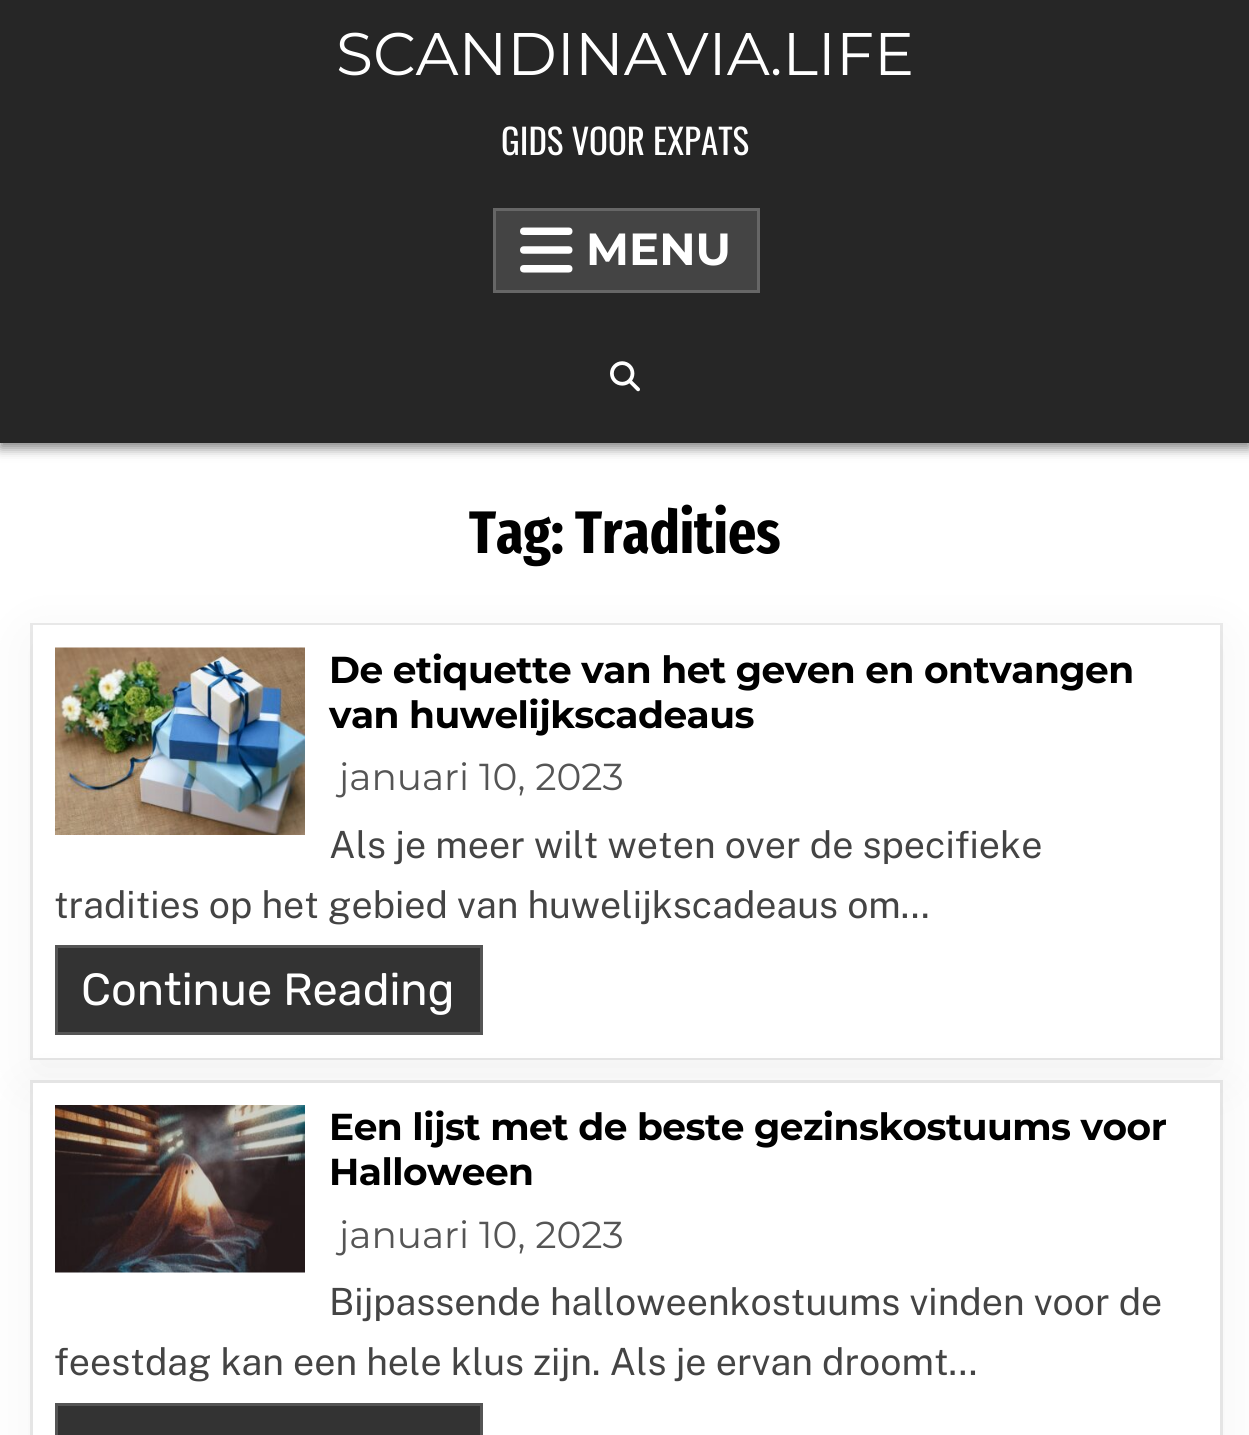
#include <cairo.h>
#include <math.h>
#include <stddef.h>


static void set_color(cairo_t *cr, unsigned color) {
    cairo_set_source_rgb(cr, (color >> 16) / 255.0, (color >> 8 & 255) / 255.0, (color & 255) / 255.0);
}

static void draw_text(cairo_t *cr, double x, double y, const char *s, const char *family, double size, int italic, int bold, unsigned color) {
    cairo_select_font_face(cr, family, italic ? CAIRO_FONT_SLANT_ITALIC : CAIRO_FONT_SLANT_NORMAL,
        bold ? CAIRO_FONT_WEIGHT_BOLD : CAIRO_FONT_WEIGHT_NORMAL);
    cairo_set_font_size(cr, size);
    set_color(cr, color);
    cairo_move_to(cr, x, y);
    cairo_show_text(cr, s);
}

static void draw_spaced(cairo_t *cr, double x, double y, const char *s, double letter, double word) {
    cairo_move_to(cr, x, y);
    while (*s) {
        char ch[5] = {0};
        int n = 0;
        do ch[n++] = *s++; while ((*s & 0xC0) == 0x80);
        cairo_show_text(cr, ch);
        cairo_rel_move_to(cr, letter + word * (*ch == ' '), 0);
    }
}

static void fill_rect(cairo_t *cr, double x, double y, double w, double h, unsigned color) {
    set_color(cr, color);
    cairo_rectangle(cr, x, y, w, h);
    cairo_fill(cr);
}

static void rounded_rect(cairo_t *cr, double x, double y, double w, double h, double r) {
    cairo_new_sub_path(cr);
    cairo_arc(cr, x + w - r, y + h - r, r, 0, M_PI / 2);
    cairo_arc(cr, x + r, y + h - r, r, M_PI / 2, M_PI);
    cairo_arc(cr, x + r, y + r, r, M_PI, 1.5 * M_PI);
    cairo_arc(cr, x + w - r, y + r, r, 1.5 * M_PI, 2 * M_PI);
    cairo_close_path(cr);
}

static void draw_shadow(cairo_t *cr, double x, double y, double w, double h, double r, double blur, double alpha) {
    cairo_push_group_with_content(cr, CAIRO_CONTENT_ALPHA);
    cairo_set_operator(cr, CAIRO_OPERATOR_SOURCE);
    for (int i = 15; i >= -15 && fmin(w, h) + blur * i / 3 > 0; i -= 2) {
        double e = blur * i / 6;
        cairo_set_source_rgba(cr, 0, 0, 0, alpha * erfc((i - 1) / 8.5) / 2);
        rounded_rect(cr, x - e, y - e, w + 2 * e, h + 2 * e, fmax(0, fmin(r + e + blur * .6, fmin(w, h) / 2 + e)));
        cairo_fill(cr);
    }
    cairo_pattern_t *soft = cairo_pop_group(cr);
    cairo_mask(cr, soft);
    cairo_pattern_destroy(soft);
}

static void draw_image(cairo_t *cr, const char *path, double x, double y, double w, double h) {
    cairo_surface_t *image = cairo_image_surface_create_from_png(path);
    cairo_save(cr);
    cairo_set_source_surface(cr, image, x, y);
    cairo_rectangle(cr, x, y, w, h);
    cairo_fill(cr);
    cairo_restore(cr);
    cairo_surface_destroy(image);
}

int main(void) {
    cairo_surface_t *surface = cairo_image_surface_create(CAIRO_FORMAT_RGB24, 1249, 1435);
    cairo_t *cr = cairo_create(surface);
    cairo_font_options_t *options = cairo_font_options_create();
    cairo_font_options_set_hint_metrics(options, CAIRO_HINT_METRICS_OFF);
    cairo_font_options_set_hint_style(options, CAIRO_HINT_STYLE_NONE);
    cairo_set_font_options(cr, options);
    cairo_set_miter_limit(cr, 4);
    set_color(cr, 0xFFFFFF);
    cairo_paint(cr);
    set_color(cr, 0x000000);
    draw_shadow(cr, 0, 5, 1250, 443, 0, 6, 0.5);
    fill_rect(cr, 0, 0, 1249, 443, 0x262626);
    draw_text(cr, 336, 75, "SCANDINAVIA.LIFE", "Montserrat", 60, 0, 0, 0xFFFFFF);
    draw_text(cr, 501, 155, "GIDS VOOR EXPATS", "Oswald", 35, 0, 0, 0xFFFFFF);
    set_color(cr, 0x444444);
    cairo_rectangle(cr, 494.5, 209.5, 264, 82);
    cairo_fill_preserve(cr);
    set_color(cr, 0x666666);
    cairo_set_line_width(cr, 3);
    cairo_stroke(cr);
    draw_image(cr, "assets/img1.png", 520, 227, 53, 46);
    draw_text(cr, 586, 265, "MENU", "Montserrat", 45, 0, 1, 0xFFFFFF);
    draw_image(cr, "assets/img2.png", 610, 361, 30, 31);
    draw_text(cr, 469, 553, "Tag: Tradities", "Fira Sans Extra Condensed", 60, 0, 1, 0x000000);
    cairo_rectangle(cr, 31.5, 624.5, 1190, 434);
    set_color(cr, 0xEBEBEB);
    cairo_stroke(cr);
    set_color(cr, 0x000000);
    draw_shadow(cr, 33, 640, 1187, 433, 0, 30, 0.05);
    fill_rect(cr, 33, 625, 1187, 433, 0xFFFFFF);
    draw_image(cr, "assets/img3.png", 55, 647, 250, 188);
    cairo_select_font_face(cr, "Montserrat", CAIRO_FONT_SLANT_NORMAL, CAIRO_FONT_WEIGHT_BOLD);
    cairo_set_font_size(cr, 37.5);
    set_color(cr, 0x000000);
    draw_spaced(cr, 329, 683, "De etiquette van het geven en ontvangen", -0.5, 0);
    draw_spaced(cr, 329, 728, "van huwelijkscadeaus", -0.5, 0);
    draw_text(cr, 339, 790, "januari 10, 2023", "Montserrat", 37.5, 0, 0, 0x555555);
    draw_text(cr, 329, 858, "Als je meer wilt weten over de specifieke", "Public Sans", 37.5, 0, 0, 0x444444);
    draw_text(cr, 54, 918, "tradities op het gebied van huwelijkscadeaus om…", "Public Sans", 37.5, 0, 0, 0x444444);
    set_color(cr, 0x333333);
    cairo_rectangle(cr, 56.5, 946.5, 425, 87);
    cairo_fill_preserve(cr);
    set_color(cr, 0x555555);
    cairo_stroke(cr);
    draw_text(cr, 81, 1005, "Continue Reading", "Rubik", 45, 0, 0, 0xFFFFFF);
    cairo_rectangle(cr, 31.5, 1081.5, 1190, 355);
    cairo_set_source_rgba(cr, 0, 0, 0, 0.08);
    cairo_stroke(cr);
    set_color(cr, 0x000000);
    draw_shadow(cr, 33, 1098, 1187, 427, 0, 30, 0.05);
    fill_rect(cr, 33, 1083, 1187, 352, 0xFFFFFF);
    draw_image(cr, "assets/img4.png", 55, 1105, 250, 168);
    cairo_select_font_face(cr, "Montserrat", CAIRO_FONT_SLANT_NORMAL, CAIRO_FONT_WEIGHT_BOLD);
    cairo_set_font_size(cr, 37.5);
    set_color(cr, 0x000000);
    draw_spaced(cr, 329, 1140, "Een lijst met de beste gezinskostuums voor", -0.5, 0);
    draw_spaced(cr, 329, 1185, "Halloween", -0.5, 0);
    draw_text(cr, 339, 1248, "januari 10, 2023", "Montserrat", 37.5, 0, 0, 0x555555);
    draw_text(cr, 329, 1315, "Bijpassende halloweenkostuums vinden voor de", "Public Sans", 37.5, 0, 0, 0x444444);
    draw_text(cr, 54, 1375, "feestdag kan een hele klus zijn. Als je ervan droomt…", "Public Sans", 37.5, 0, 0, 0x444444);
    set_color(cr, 0x333333);
    cairo_rectangle(cr, 56.5, 1404.5, 425, 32);
    cairo_fill_preserve(cr);
    set_color(cr, 0x555555);
    cairo_stroke(cr);
    cairo_surface_write_to_png(surface, "output.png");
    cairo_font_options_destroy(options);
    cairo_destroy(cr);
    cairo_surface_destroy(surface);
    return 0;
}
